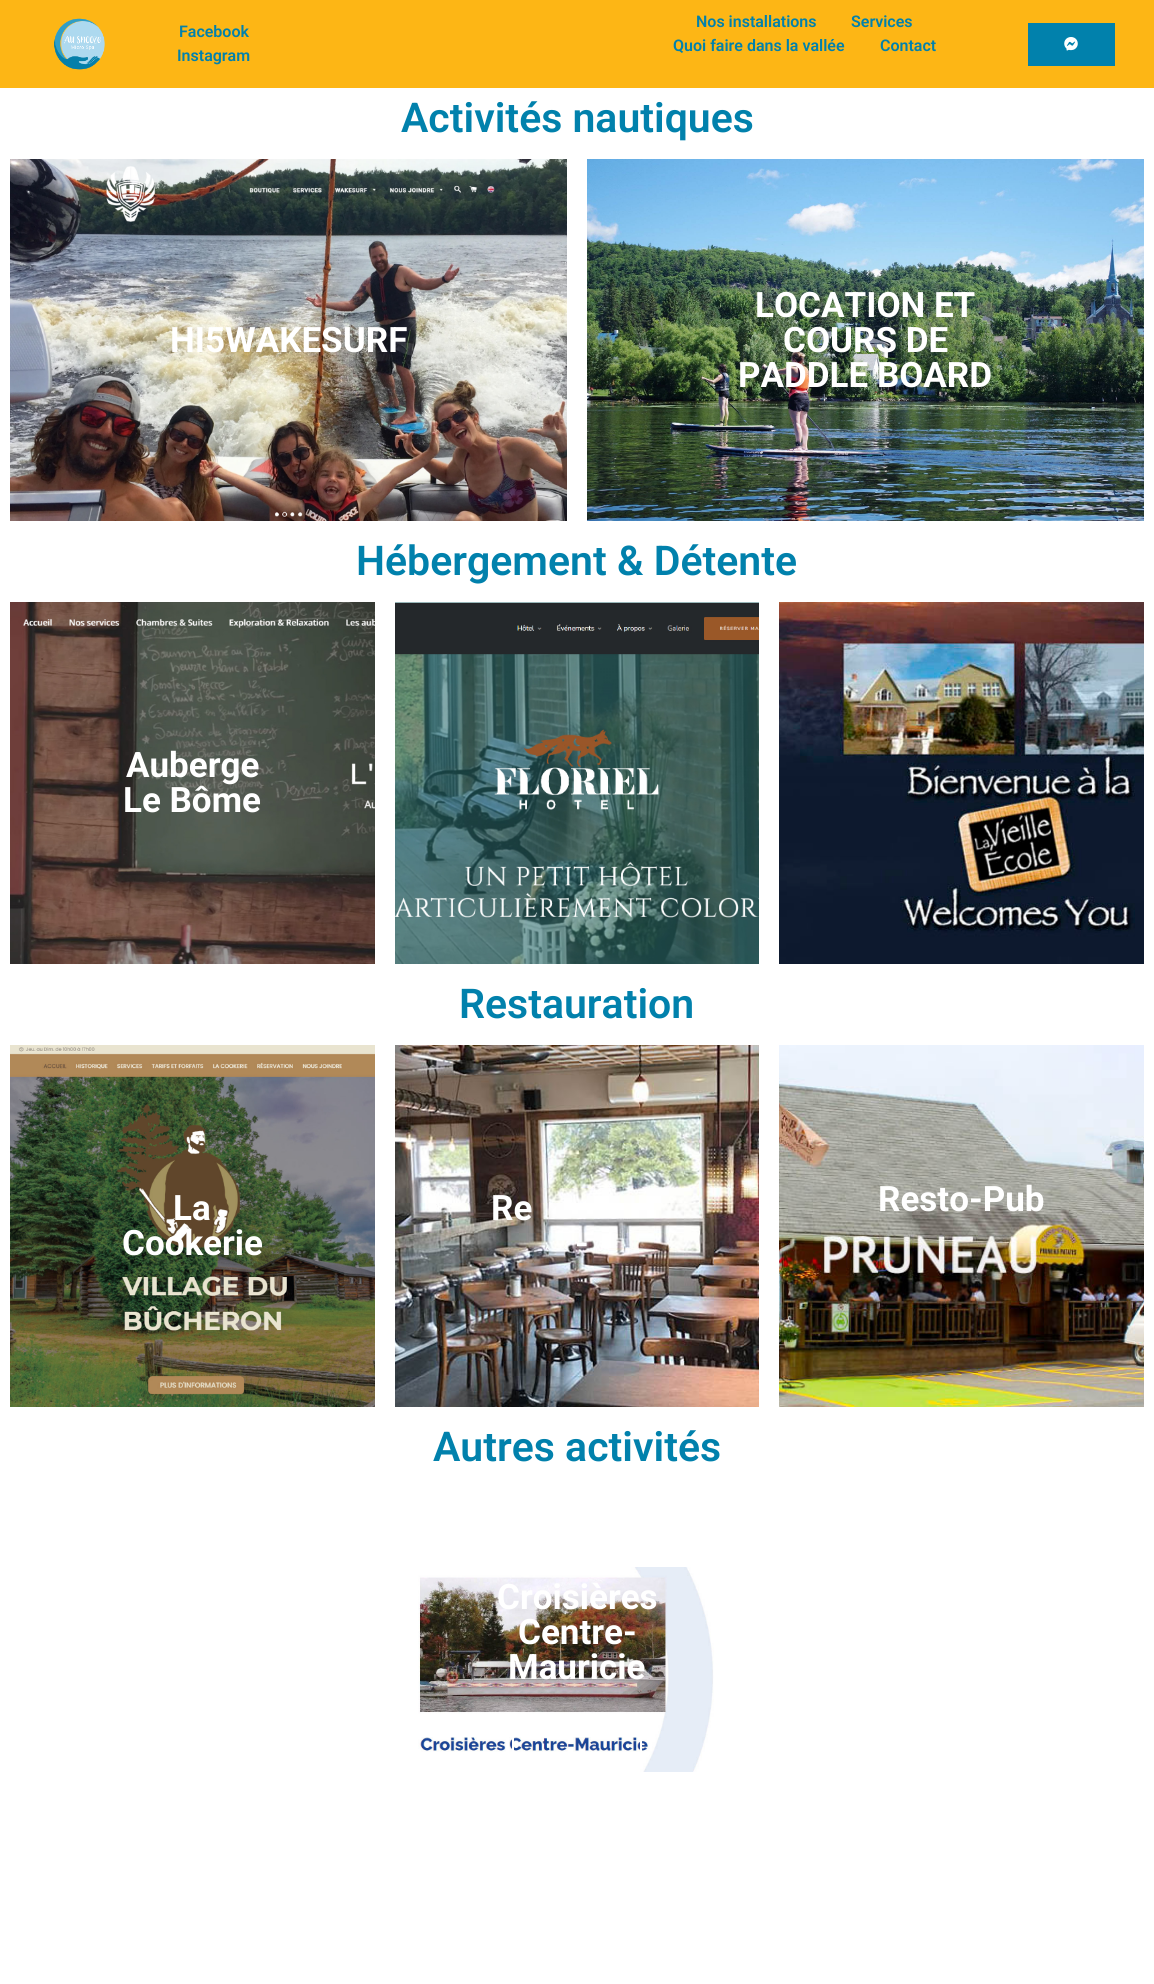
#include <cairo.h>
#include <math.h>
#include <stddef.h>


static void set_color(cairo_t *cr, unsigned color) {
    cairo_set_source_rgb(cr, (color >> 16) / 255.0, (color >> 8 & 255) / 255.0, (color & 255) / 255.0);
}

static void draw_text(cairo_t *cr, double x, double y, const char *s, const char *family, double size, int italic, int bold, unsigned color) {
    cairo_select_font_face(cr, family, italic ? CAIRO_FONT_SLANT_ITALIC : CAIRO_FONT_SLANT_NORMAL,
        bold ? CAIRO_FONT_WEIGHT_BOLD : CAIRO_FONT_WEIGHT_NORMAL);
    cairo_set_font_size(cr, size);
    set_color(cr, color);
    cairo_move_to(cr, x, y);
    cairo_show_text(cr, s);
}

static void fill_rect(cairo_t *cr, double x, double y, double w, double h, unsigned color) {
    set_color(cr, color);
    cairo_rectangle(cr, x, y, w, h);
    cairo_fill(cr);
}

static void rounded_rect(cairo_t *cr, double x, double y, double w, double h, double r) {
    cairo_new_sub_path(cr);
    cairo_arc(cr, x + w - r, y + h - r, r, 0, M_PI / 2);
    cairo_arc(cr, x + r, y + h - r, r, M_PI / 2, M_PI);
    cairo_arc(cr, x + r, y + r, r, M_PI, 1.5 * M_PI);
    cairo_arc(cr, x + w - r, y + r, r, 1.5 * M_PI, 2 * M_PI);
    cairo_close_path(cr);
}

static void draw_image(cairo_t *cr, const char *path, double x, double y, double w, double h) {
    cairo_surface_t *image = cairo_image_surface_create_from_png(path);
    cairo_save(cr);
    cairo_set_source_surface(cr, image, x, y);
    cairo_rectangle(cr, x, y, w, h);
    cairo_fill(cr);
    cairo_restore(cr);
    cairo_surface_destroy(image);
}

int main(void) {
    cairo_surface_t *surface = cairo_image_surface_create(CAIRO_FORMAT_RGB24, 1154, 1984);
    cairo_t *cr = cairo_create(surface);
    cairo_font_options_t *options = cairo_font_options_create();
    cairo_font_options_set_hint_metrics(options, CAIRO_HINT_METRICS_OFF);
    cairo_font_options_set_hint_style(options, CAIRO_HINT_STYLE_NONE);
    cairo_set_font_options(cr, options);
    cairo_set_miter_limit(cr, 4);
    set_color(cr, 0xFFFFFF);
    cairo_paint(cr);
    fill_rect(cr, 0, 0, 1154, 88, 0xFDB615);
    draw_image(cr, "assets/img1.png", 54, 18, 51, 52);
    draw_text(cr, 179, 37, "Facebook", "Roboto SemiBold", 16, 0, 0, 0x0181AC);
    draw_text(cr, 177, 61, "Instagram", "Roboto SemiBold", 16, 0, 0, 0x0181AC);
    draw_text(cr, 696, 27, "Nos installations", "Roboto SemiBold", 16, 0, 0, 0x0181AC);
    draw_text(cr, 851, 27, "Services", "Roboto SemiBold", 16, 0, 0, 0x0181AC);
    draw_text(cr, 673, 51, "Quoi faire dans la vallée", "Roboto SemiBold", 16, 0, 0, 0x0181AC);
    draw_text(cr, 880, 51, "Contact", "Roboto SemiBold", 16, 0, 0, 0x0181AC);
    fill_rect(cr, 1028, 23, 87, 43, 0x0181AC);
    draw_image(cr, "assets/img2.png", 1064, 37, 14, 14);
    draw_text(cr, 401, 132, "Activités nautiques", "Roboto SemiBold", 41, 0, 0, 0x0181AC);
    draw_image(cr, "assets/img3.png", 10, 159, 557, 362);
    draw_text(cr, 170, 352, "HI5WAKESURF", "Roboto", 35, 0, 1, 0xFFFFFF);
    draw_image(cr, "assets/img4.png", 587, 159, 557, 362);
    draw_text(cr, 755, 317, "LOCATION ET", "Roboto", 35, 0, 1, 0xFFFFFF);
    draw_text(cr, 783, 352, "COURS DE", "Roboto", 35, 0, 1, 0xFFFFFF);
    draw_text(cr, 738, 387, "PADDLE BOARD", "Roboto", 35, 0, 1, 0xFFFFFF);
    draw_text(cr, 356, 575, "Hébergement & Détente", "Roboto SemiBold", 41, 0, 0, 0x0181AC);
    draw_image(cr, "assets/img5.png", 10, 602, 365, 362);
    draw_text(cr, 126, 777, "Auberge", "Roboto", 35, 0, 1, 0xFFFFFF);
    draw_text(cr, 123, 812, "Le Bôme", "Roboto", 35, 0, 1, 0xFFFFFF);
    draw_image(cr, "assets/img6.png", 395, 602, 364, 362);
    draw_image(cr, "assets/img7.png", 779, 602, 365, 362);
    draw_text(cr, 459, 1018, "Restauration", "Roboto SemiBold", 41, 0, 0, 0x0181AC);
    draw_image(cr, "assets/img8.png", 10, 1045, 365, 362);
    draw_text(cr, 173, 1220, "La", "Roboto", 35, 0, 1, 0xFFFFFF);
    draw_text(cr, 122, 1255, "Cookerie", "Roboto", 35, 0, 1, 0xFFFFFF);
    draw_image(cr, "assets/img9.png", 395, 1045, 364, 362);
    draw_text(cr, 491, 1220, "Re", "Roboto", 35, 0, 1, 0xFFFFFF);
    draw_text(cr, 575, 1255, "-", "Roboto", 35, 0, 1, 0xFFFFFF);
    draw_image(cr, "assets/img10.png", 779, 1045, 365, 362);
    draw_text(cr, 878, 1211, "Resto-Pub", "Roboto", 35, 0, 1, 0xFFFFFF);
    draw_text(cr, 433, 1461, "Autres activités", "Roboto SemiBold", 41, 0, 0, 0x0181AC);
    draw_image(cr, "assets/img11.png", 418, 1567, 296, 205);
    draw_text(cr, 497, 1609, "Croisières", "Roboto", 35, 0, 1, 0xFFFFFF);
    draw_text(cr, 518, 1644, "Centre-", "Roboto", 35, 0, 1, 0xFFFFFF);
    draw_text(cr, 508, 1679, "Mauricie", "Roboto", 35, 0, 1, 0xFFFFFF);
    rounded_rect(cr, 513, 1716, 128, 41, 2);
    cairo_stroke(cr);
    cairo_surface_write_to_png(surface, "output.png");
    cairo_font_options_destroy(options);
    cairo_destroy(cr);
    cairo_surface_destroy(surface);
    return 0;
}
